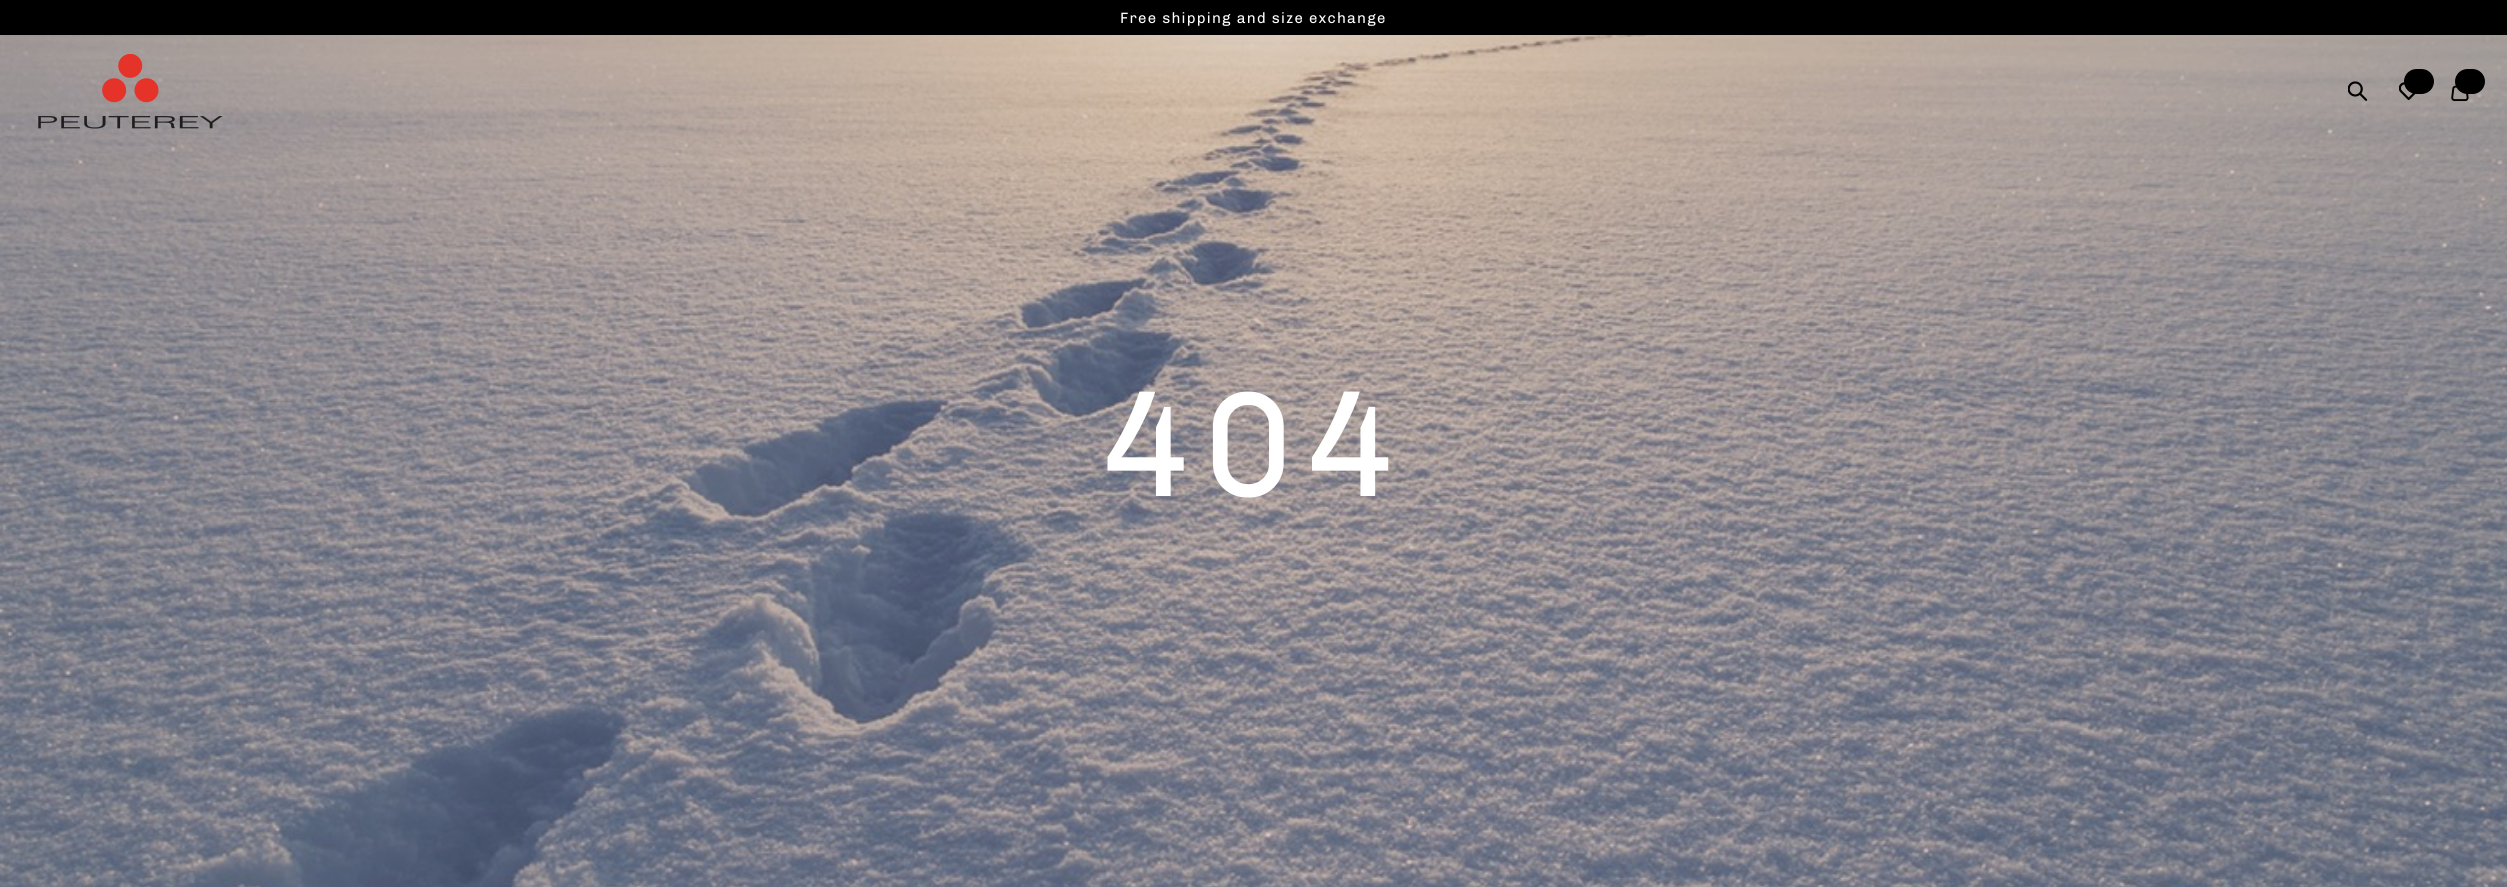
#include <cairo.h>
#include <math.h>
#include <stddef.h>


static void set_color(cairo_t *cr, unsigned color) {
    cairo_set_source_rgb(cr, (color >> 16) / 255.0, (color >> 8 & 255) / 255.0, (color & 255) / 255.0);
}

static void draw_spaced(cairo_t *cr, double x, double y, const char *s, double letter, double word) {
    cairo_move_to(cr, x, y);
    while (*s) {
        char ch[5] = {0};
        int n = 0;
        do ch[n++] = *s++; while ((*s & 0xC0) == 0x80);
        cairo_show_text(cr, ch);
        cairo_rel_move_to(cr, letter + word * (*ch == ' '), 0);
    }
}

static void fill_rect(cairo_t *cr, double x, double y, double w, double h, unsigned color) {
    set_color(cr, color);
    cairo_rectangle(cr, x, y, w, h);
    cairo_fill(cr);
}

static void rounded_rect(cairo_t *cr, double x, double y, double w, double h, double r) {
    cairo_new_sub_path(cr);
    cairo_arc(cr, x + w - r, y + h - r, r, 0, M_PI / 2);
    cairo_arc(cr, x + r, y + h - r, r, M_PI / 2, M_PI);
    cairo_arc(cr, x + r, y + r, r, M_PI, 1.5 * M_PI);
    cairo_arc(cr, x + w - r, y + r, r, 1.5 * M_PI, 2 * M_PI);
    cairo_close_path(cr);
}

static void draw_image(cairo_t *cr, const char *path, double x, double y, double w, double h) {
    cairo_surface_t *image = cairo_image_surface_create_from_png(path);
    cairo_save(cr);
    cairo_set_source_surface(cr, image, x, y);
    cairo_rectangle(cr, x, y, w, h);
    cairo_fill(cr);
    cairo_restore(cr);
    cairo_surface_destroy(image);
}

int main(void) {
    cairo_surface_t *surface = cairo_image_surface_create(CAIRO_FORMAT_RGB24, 2507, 887);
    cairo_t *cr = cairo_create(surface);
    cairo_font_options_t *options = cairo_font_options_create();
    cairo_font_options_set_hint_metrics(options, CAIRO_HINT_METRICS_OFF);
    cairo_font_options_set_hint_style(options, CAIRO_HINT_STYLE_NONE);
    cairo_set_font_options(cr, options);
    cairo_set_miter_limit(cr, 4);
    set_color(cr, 0xFFFFFF);
    cairo_paint(cr);
    fill_rect(cr, 0, 0, 2507, 35, 0x000000);
    cairo_select_font_face(cr, "Chivo", CAIRO_FONT_SLANT_NORMAL, CAIRO_FONT_WEIGHT_NORMAL);
    cairo_set_font_size(cr, 15);
    set_color(cr, 0xFFFFFF);
    draw_spaced(cr, 1120, 23, "Free shipping and size exchange", 1.25, 0);
    draw_image(cr, "assets/img5.png", 0, 35, 2507, 852);
    draw_image(cr, "assets/img1.png", 38, 54, 185, 75);
    draw_image(cr, "assets/img2.png", 2348, 81, 20, 20);
    draw_image(cr, "assets/img3.png", 2399, 82, 17, 18);
    set_color(cr, 0x000000);
    rounded_rect(cr, 2404, 69, 30, 25, 12.5);
    cairo_fill(cr);
    cairo_save(cr);
    cairo_rectangle(cr, 2411, 74, 20, 20);
    cairo_clip(cr);
    cairo_new_path(cr);
    cairo_move_to(cr, 2421, 74.5);
    cairo_curve_to(cr, 2423.5, 74.5, 2426, 75.5, 2427.5, 77);
    cairo_curve_to(cr, 2436.5, 86, 2422.5, 98.5, 2414.5, 90);
    cairo_set_line_width(cr, 1.6);
    cairo_stroke(cr);
    cairo_restore(cr);
    draw_image(cr, "assets/img4.png", 2451, 84, 18, 17);
    rounded_rect(cr, 2455, 69, 30, 25, 12.5);
    cairo_fill(cr);
    cairo_save(cr);
    cairo_rectangle(cr, 2463, 74, 20, 20);
    cairo_clip(cr);
    cairo_new_path(cr);
    cairo_move_to(cr, 2472.5, 74.5);
    cairo_curve_to(cr, 2475, 74.5, 2477, 75.5, 2479, 77);
    cairo_curve_to(cr, 2487.5, 86, 2474, 98.5, 2466, 90);
    cairo_set_line_width(cr, 1.6);
    cairo_stroke(cr);
    cairo_restore(cr);
    cairo_set_font_size(cr, 150);
    set_color(cr, 0xFFFFFF);
    draw_spaced(cr, 1100, 496, "404", 10, 0);
    cairo_surface_write_to_png(surface, "output.png");
    cairo_font_options_destroy(options);
    cairo_destroy(cr);
    cairo_surface_destroy(surface);
    return 0;
}
